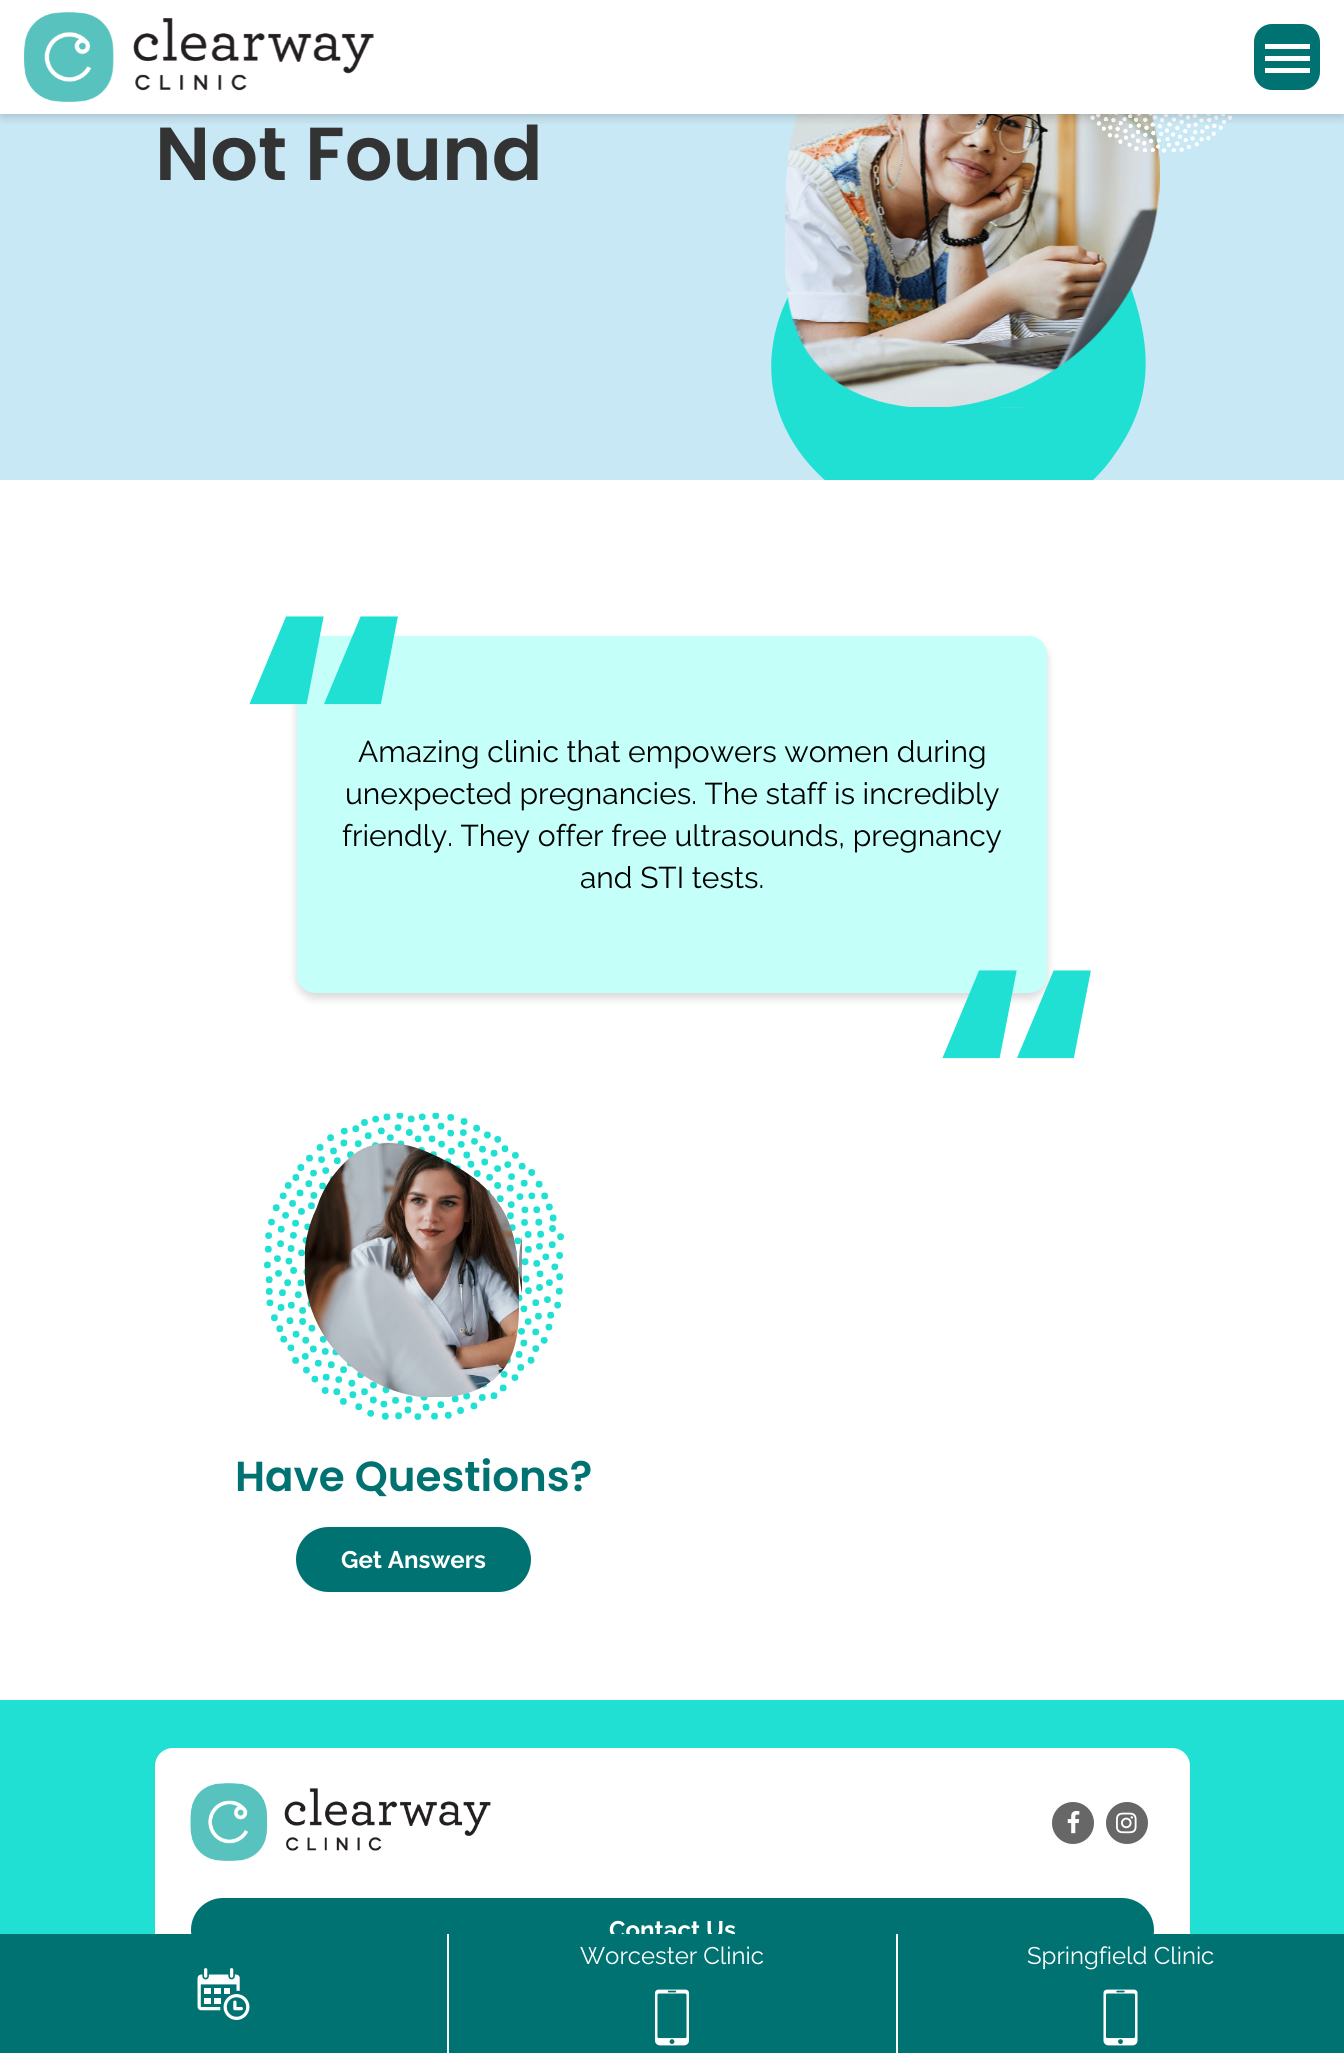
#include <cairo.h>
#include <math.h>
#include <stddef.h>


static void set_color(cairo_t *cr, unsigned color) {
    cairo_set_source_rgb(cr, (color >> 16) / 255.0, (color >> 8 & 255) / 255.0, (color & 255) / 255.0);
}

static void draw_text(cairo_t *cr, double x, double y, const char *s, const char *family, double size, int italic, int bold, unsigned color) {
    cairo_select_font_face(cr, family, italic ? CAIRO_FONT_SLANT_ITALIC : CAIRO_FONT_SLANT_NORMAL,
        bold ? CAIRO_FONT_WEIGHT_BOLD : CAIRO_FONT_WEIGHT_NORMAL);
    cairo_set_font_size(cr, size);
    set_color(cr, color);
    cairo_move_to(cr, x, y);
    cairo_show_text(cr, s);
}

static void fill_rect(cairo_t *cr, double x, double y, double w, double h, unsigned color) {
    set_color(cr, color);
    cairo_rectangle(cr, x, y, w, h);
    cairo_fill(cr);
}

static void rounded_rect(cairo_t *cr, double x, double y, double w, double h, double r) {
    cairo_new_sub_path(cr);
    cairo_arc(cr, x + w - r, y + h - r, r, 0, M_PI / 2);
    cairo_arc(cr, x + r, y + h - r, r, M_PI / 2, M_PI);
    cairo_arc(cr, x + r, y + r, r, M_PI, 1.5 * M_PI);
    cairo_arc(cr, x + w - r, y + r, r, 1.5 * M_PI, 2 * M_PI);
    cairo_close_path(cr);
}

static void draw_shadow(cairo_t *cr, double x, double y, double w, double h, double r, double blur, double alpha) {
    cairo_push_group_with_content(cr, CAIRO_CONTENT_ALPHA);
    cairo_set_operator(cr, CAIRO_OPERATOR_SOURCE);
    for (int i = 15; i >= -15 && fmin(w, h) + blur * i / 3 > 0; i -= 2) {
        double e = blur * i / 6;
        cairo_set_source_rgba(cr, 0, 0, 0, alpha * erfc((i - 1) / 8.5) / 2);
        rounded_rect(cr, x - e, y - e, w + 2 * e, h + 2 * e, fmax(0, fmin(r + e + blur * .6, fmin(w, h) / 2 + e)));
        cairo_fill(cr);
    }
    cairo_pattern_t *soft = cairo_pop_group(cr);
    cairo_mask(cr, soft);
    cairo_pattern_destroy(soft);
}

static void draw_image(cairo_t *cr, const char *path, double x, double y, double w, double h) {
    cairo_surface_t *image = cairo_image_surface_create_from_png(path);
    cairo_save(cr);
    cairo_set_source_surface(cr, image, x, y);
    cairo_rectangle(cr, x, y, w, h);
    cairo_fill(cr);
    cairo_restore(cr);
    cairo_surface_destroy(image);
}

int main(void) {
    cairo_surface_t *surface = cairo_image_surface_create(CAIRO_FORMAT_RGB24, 1344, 2053);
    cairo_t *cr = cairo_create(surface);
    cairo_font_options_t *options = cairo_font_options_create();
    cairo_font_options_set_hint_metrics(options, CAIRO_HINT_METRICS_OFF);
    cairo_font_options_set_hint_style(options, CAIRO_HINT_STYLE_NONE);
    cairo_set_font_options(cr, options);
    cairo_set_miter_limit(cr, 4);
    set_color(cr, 0xFFFFFF);
    cairo_paint(cr);
    fill_rect(cr, 0, 114, 1344, 366, 0xC9E8F5);
    cairo_save(cr);
    cairo_rectangle(cr, 771, 195, 375, 285);
    cairo_clip(cr);
    set_color(cr, 0x1FE0D3);
    cairo_new_path(cr);
    cairo_move_to(cr, 845, 230);
    cairo_curve_to(cr, 817, 249, 796, 277, 783, 308);
    cairo_curve_to(cr, 740, 415, 821, 509, 924, 528);
    cairo_curve_to(cr, 974, 538, 1027, 529, 1069, 500);
    cairo_curve_to(cr, 1087, 487, 1103, 472, 1115, 454);
    cairo_curve_to(cr, 1153, 401, 1152, 350, 1132, 291);
    cairo_curve_to(cr, 1126, 272, 1118, 252, 1104, 238);
    cairo_curve_to(cr, 1089, 223, 1069, 215, 1049, 209);
    cairo_curve_to(cr, 981, 188, 907, 188, 845, 230);
    cairo_close_path(cr);
    cairo_fill(cr);
    cairo_restore(cr);
    draw_image(cr, "assets/img2.png", 785, 114, 375, 294);
    draw_image(cr, "assets/img3.png", 1090, 114, 143, 39);
    cairo_save(cr);
    cairo_rectangle(cr, 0, 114, 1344, 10);
    cairo_clip(cr);
    set_color(cr, 0x000000);
    draw_shadow(cr, 2, 5, 1341, 111, 0, 6, 0.2);
    cairo_restore(cr);
    draw_image(cr, "assets/img1.png", 24, 12, 350, 90);
    set_color(cr, 0x017272);
    rounded_rect(cr, 1254, 24, 66, 66, 18);
    cairo_fill(cr);
    fill_rect(cr, 1265, 44, 45, 5, 0xFFFFFF);
    fill_rect(cr, 1265, 56, 45, 5, 0xFFFFFF);
    fill_rect(cr, 1265, 68, 45, 5, 0xFFFFFF);
    draw_text(cr, 155, 180, "Not Found", "Poppins SemiBold", 75, 0, 0, 0x333333);
    set_color(cr, 0x000000);
    draw_shadow(cr, 297, 641, 750, 357, 18, 4.5, 0.16);
    set_color(cr, 0xC4FFF9);
    rounded_rect(cr, 297, 636, 750, 357, 18);
    cairo_fill(cr);
    draw_text(cr, 237, 846, "“", "Poppins", 327, 0, 1, 0x1FE0D3);
    draw_text(cr, 358, 762, "Amazing clinic that empowers women during", "Raleway", 30, 0, 0, 0x000000);
    draw_text(cr, 345, 804, "unexpected pregnancies. The staff is incredibly", "Raleway", 30, 0, 0, 0x000000);
    draw_text(cr, 342, 846, "friendly. They offer free ultrasounds, pregnancy", "Raleway", 30, 0, 0, 0x000000);
    draw_text(cr, 580, 888, "and STI tests.", "Raleway", 30, 0, 0, 0x000000);
    draw_text(cr, 930, 1200, "“", "Poppins", 327, 0, 1, 0x1FE0D3);
    draw_image(cr, "assets/img4.png", 264, 1112, 300, 308);
    draw_image(cr, "assets/img5.png", 304, 1142, 218, 256);
    draw_text(cr, 235, 1491, "Have Questions?", "Poppins SemiBold", 42, 0, 0, 0x017272);
    rounded_rect(cr, 296, 1527, 235, 65, 32.5);
    cairo_fill(cr);
    draw_text(cr, 341, 1568, "Get Answers", "Raleway", 24, 0, 1, 0xFFFFFF);
    fill_rect(cr, 0, 1700, 1344, 234, 0x1FE0D3);
    set_color(cr, 0xFFFFFF);
    cairo_new_path(cr);
    cairo_move_to(cr, 173, 1748);
    cairo_line_to(cr, 1172, 1748);
    cairo_curve_to(cr, 1182, 1748, 1190, 1756, 1190, 1766);
    cairo_line_to(cr, 1190, 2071);
    cairo_line_to(cr, 155, 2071);
    cairo_line_to(cr, 155, 1766);
    cairo_curve_to(cr, 155, 1756, 163, 1748, 173, 1748);
    cairo_close_path(cr);
    cairo_fill(cr);
    draw_image(cr, "assets/img6.png", 190, 1783, 301, 78);
    set_color(cr, 0x676767);
    cairo_arc(cr, 1073, 1823, 21, 0, 2 * M_PI);
    cairo_fill(cr);
    draw_image(cr, "assets/img7.png", 1067, 1810, 13, 24);
    cairo_arc(cr, 1127, 1823, 21, 0, 2 * M_PI);
    cairo_fill(cr);
    draw_image(cr, "assets/img8.png", 1116, 1812, 21, 22);
    set_color(cr, 0x017272);
    rounded_rect(cr, 191, 1898, 963, 64, 32);
    cairo_fill(cr);
    draw_text(cr, 609, 1938, "Contact Us", "Raleway", 24, 0, 1, 0xFFFFFF);
    fill_rect(cr, 0, 1934, 1344, 119, 0x017272);
    fill_rect(cr, 447, 1934, 2, 119, 0xFFFFFF);
    draw_image(cr, "assets/img9.png", 197, 1968, 53, 52);
    fill_rect(cr, 896, 1934, 2, 119, 0xFFFFFF);
    draw_text(cr, 580, 1964, "Worcester Clinic", "Raleway", 24, 0, 0, 0xFFFFFF);
    draw_image(cr, "assets/img10.png", 654, 1989, 35, 57);
    draw_text(cr, 1027, 1964, "Springfield Clinic", "Raleway", 24, 0, 0, 0xFFFFFF);
    draw_image(cr, "assets/img11.png", 1103, 1989, 35, 57);
    cairo_surface_write_to_png(surface, "output.png");
    cairo_font_options_destroy(options);
    cairo_destroy(cr);
    cairo_surface_destroy(surface);
    return 0;
}
